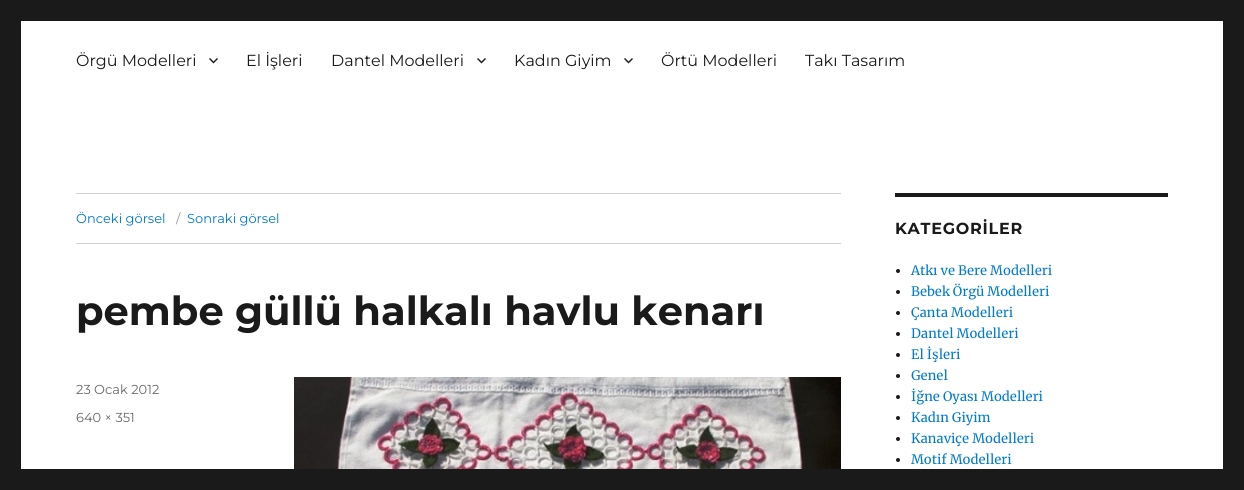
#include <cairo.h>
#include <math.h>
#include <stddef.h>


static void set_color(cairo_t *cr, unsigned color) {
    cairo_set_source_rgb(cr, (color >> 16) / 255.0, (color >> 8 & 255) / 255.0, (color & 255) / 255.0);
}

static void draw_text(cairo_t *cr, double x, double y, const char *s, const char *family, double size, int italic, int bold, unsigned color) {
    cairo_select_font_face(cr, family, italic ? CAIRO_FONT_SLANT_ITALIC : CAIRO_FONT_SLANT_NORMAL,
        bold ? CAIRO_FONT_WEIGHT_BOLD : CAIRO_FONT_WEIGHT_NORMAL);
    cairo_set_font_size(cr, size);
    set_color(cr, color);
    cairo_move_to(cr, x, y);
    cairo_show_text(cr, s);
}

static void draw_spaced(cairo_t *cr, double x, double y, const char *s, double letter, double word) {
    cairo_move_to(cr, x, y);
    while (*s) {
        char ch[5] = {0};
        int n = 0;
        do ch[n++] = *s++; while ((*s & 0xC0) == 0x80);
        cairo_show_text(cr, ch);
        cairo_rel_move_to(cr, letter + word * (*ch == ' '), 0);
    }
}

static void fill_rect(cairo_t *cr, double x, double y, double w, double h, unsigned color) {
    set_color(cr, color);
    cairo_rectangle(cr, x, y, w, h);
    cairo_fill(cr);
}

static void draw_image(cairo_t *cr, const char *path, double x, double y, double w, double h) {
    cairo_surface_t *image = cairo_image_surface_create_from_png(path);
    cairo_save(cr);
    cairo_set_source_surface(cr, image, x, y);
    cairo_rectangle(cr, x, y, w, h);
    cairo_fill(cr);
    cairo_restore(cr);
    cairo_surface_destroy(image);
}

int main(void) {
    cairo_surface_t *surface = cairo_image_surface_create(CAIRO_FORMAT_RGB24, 1244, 490);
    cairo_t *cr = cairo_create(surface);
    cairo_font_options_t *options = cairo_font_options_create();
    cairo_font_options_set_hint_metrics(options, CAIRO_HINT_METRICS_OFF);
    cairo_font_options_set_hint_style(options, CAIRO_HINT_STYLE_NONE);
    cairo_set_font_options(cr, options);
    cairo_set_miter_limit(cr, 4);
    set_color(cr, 0x1A1A1A);
    cairo_paint(cr);
    fill_rect(cr, 21, 21, 1202, 448, 0xFFFFFF);
    draw_text(cr, 76, 66, "Örgü Modelleri", "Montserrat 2 Thin", 16, 0, 0, 0x1A1A1A);
    draw_image(cr, "assets/img1.png", 209, 58, 9, 6);
    draw_text(cr, 246, 66, "El İşleri", "Montserrat 2 Thin", 16, 0, 0, 0x1A1A1A);
    draw_text(cr, 331, 66, "Dantel Modelleri", "Montserrat 2 Thin", 16, 0, 0, 0x1A1A1A);
    draw_image(cr, "assets/img1.png", 477, 58, 9, 6);
    draw_text(cr, 514, 66, "Kadın Giyim", "Montserrat 2 Thin", 16, 0, 0, 0x1A1A1A);
    draw_image(cr, "assets/img1.png", 624, 58, 9, 6);
    draw_text(cr, 661, 66, "Örtü Modelleri", "Montserrat 2 Thin", 16, 0, 0, 0x1A1A1A);
    draw_text(cr, 805, 66, "Takı Tasarım", "Montserrat 2 Thin", 16, 0, 0, 0x1A1A1A);
    fill_rect(cr, 76, 193, 765, 1, 0xD1D1D1);
    fill_rect(cr, 76, 243, 765, 1, 0xD1D1D1);
    draw_text(cr, 76, 223, "Önceki görsel", "Montserrat 2 Thin", 13, 0, 0, 0x007ACC);
    draw_text(cr, 176, 223, "/", "Montserrat 2 Thin", 13, 0, 0, 0x959595);
    draw_text(cr, 187, 223, "Sonraki görsel", "Montserrat 2 Thin", 13, 0, 0, 0x007ACC);
    draw_text(cr, 76, 325, "pembe güllü halkalı havlu kenarı", "Montserrat Thin", 40, 0, 0, 0x1A1A1A);
    draw_text(cr, 76, 394, "23 Ocak 2012", "Montserrat 2 Thin", 13, 0, 0, 0x686868);
    draw_text(cr, 76, 422, "640 × 351", "Montserrat 2 Thin", 13, 0, 0, 0x686868);
    draw_image(cr, "assets/img2.png", 294, 377, 547, 92);
    fill_rect(cr, 895, 193, 273, 4, 0x1A1A1A);
    cairo_select_font_face(cr, "Montserrat Thin", CAIRO_FONT_SLANT_NORMAL, CAIRO_FONT_WEIGHT_NORMAL);
    cairo_set_font_size(cr, 16);
    draw_spaced(cr, 895, 234, "KATEGORİLER", 0.75, 0);
    cairo_new_path(cr);
    cairo_arc(cr, 898, 271, 2, 0, 2 * M_PI);
    cairo_fill(cr);
    draw_text(cr, 911, 275, "Atkı ve Bere Modelleri", "Merriweather", 13, 0, 0, 0x007ACC);
    set_color(cr, 0x1A1A1A);
    cairo_new_path(cr);
    cairo_arc(cr, 898, 292, 2, 0, 2 * M_PI);
    cairo_fill(cr);
    draw_text(cr, 911, 296, "Bebek Örgü Modelleri", "Merriweather", 13, 0, 0, 0x007ACC);
    set_color(cr, 0x1A1A1A);
    cairo_new_path(cr);
    cairo_arc(cr, 898, 313, 2, 0, 2 * M_PI);
    cairo_fill(cr);
    draw_text(cr, 911, 317, "Çanta Modelleri", "Merriweather", 13, 0, 0, 0x007ACC);
    set_color(cr, 0x1A1A1A);
    cairo_new_path(cr);
    cairo_arc(cr, 898, 334, 2, 0, 2 * M_PI);
    cairo_fill(cr);
    draw_text(cr, 911, 338, "Dantel Modelleri", "Merriweather", 13, 0, 0, 0x007ACC);
    set_color(cr, 0x1A1A1A);
    cairo_new_path(cr);
    cairo_arc(cr, 898, 355, 2, 0, 2 * M_PI);
    cairo_fill(cr);
    draw_text(cr, 911, 359, "El İşleri", "Merriweather", 13, 0, 0, 0x007ACC);
    set_color(cr, 0x1A1A1A);
    cairo_new_path(cr);
    cairo_arc(cr, 898, 376, 2, 0, 2 * M_PI);
    cairo_fill(cr);
    draw_text(cr, 911, 380, "Genel", "Merriweather", 13, 0, 0, 0x007ACC);
    set_color(cr, 0x1A1A1A);
    cairo_new_path(cr);
    cairo_arc(cr, 898, 397, 2, 0, 2 * M_PI);
    cairo_fill(cr);
    draw_text(cr, 911, 401, "İğne Oyası Modelleri", "Merriweather", 13, 0, 0, 0x007ACC);
    set_color(cr, 0x1A1A1A);
    cairo_new_path(cr);
    cairo_arc(cr, 898, 418, 2, 0, 2 * M_PI);
    cairo_fill(cr);
    draw_text(cr, 911, 422, "Kadın Giyim", "Merriweather", 13, 0, 0, 0x007ACC);
    set_color(cr, 0x1A1A1A);
    cairo_new_path(cr);
    cairo_arc(cr, 898, 439, 2, 0, 2 * M_PI);
    cairo_fill(cr);
    draw_text(cr, 911, 443, "Kanaviçe Modelleri", "Merriweather", 13, 0, 0, 0x007ACC);
    set_color(cr, 0x1A1A1A);
    cairo_new_path(cr);
    cairo_arc(cr, 898, 460, 2, 0, 2 * M_PI);
    cairo_fill(cr);
    draw_text(cr, 911, 464, "Motif Modelleri", "Merriweather", 13, 0, 0, 0x007ACC);
    cairo_surface_write_to_png(surface, "output.png");
    cairo_font_options_destroy(options);
    cairo_destroy(cr);
    cairo_surface_destroy(surface);
    return 0;
}
